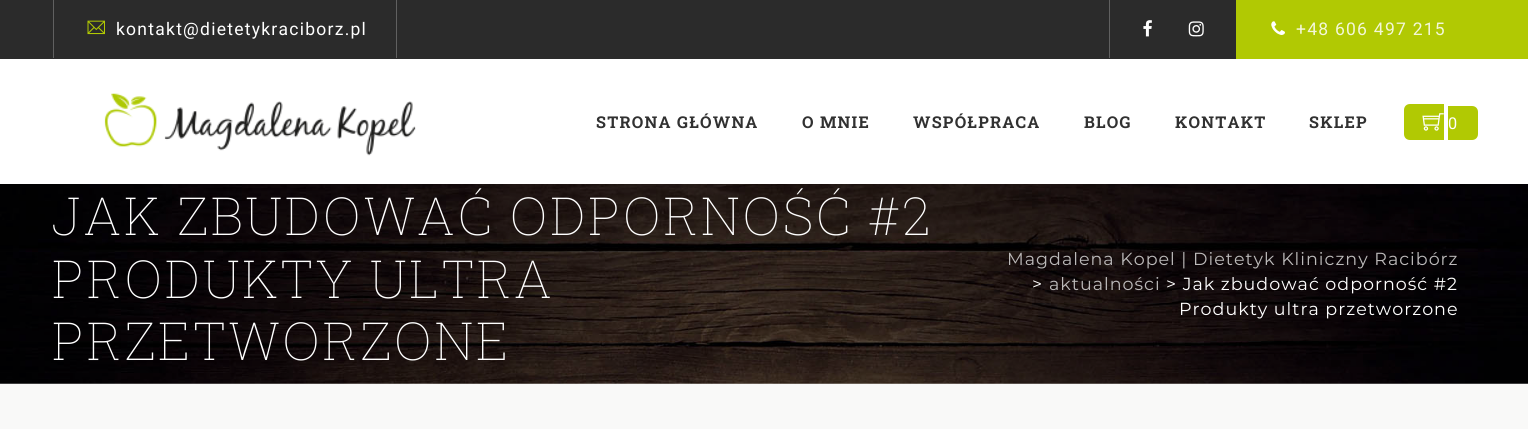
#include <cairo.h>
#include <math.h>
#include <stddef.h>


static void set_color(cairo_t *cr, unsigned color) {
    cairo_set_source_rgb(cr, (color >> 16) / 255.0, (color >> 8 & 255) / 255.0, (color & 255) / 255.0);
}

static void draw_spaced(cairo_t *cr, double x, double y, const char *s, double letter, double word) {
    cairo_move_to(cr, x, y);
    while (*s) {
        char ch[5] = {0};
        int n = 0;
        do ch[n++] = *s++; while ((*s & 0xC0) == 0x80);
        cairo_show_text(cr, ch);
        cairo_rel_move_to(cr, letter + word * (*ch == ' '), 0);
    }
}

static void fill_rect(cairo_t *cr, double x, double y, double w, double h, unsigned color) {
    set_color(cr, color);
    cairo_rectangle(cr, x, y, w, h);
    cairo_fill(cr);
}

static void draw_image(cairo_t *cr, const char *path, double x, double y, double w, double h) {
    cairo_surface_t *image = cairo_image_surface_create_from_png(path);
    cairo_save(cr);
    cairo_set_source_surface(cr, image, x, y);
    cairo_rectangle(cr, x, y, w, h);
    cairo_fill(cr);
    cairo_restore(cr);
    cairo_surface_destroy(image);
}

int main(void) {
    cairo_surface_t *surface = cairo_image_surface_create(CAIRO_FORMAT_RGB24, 1528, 429);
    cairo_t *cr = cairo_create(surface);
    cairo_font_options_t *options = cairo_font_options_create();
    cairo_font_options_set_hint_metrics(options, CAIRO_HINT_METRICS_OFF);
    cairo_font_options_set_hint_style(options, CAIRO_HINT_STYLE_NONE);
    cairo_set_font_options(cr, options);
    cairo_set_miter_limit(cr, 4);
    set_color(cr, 0xF9F9F8);
    cairo_paint(cr);
    fill_rect(cr, 0, 0, 1236, 59, 0x2B2B2B);
    fill_rect(cr, 53, 0, 1, 58, 0x606060);
    draw_image(cr, "assets/img1.png", 87, 20, 18, 15);
    cairo_select_font_face(cr, "Roboto", CAIRO_FONT_SLANT_NORMAL, CAIRO_FONT_WEIGHT_NORMAL);
    cairo_set_font_size(cr, 17.5);
    set_color(cr, 0xFFFFFF);
    draw_spaced(cr, 116, 35, "kontakt@dietetykraciborz.pl", 1.25, 0);
    fill_rect(cr, 396, 0, 1, 58, 0x606060);
    fill_rect(cr, 1109, 0, 1, 58, 0x606060);
    draw_image(cr, "assets/img2.png", 1143, 20, 9, 17);
    draw_image(cr, "assets/img3.png", 1188, 21, 16, 16);
    fill_rect(cr, 1236, 0, 292, 59, 0xB1C903);
    draw_image(cr, "assets/img4.png", 1271, 21, 14, 14);
    set_color(cr, 0xF3F7D9);
    draw_spaced(cr, 1296, 35, "+48 606 497 215", 1.25, 0);
    fill_rect(cr, 0, 59, 1528, 125, 0xFFFFFF);
    draw_image(cr, "assets/img5.png", 104, 93, 312, 63);
    cairo_select_font_face(cr, "Roboto Slab", CAIRO_FONT_SLANT_NORMAL, CAIRO_FONT_WEIGHT_BOLD);
    cairo_set_font_size(cr, 16.25);
    set_color(cr, 0x313131);
    draw_spaced(cr, 596, 128, "STRONA GŁÓWNA", 1.25, 0);
    draw_spaced(cr, 802, 128, "O MNIE", 1.25, 0);
    draw_spaced(cr, 913, 128, "WSPÓŁPRACA", 1.25, 0);
    draw_spaced(cr, 1084, 128, "BLOG", 1.25, 0);
    draw_spaced(cr, 1175, 128, "KONTAKT", 1.25, 0);
    draw_spaced(cr, 1309, 128, "SKLEP", 1.25, 0);
    set_color(cr, 0xB1C903);
    cairo_new_path(cr);
    cairo_move_to(cr, 1410, 104);
    cairo_line_to(cr, 1444, 104);
    cairo_line_to(cr, 1444, 140);
    cairo_line_to(cr, 1410, 140);
    cairo_curve_to(cr, 1406.5, 140, 1404, 137.5, 1404, 134);
    cairo_line_to(cr, 1404, 110);
    cairo_curve_to(cr, 1404, 106.5, 1406.5, 104, 1410, 104);
    cairo_close_path(cr);
    cairo_fill(cr);
    cairo_new_path(cr);
    cairo_move_to(cr, 1448, 106);
    cairo_line_to(cr, 1472, 106);
    cairo_curve_to(cr, 1475.5, 106, 1478, 108.5, 1478, 112);
    cairo_line_to(cr, 1478, 134);
    cairo_curve_to(cr, 1478, 137.5, 1475.5, 140, 1472, 140);
    cairo_line_to(cr, 1448, 140);
    cairo_close_path(cr);
    cairo_fill(cr);
    draw_image(cr, "assets/img6.png", 1422, 113, 22, 18);
    cairo_select_font_face(cr, "Roboto", CAIRO_FONT_SLANT_NORMAL, CAIRO_FONT_WEIGHT_NORMAL);
    set_color(cr, 0xFFFFFF);
    draw_spaced(cr, 1448, 129, "0", 1, 0);
    draw_image(cr, "assets/img7.png", 0, 184, 1528, 200);
    cairo_select_font_face(cr, "Roboto Slab Thin", CAIRO_FONT_SLANT_NORMAL, CAIRO_FONT_WEIGHT_NORMAL);
    cairo_set_font_size(cr, 52.5);
    draw_spaced(cr, 52, 235, "JAK ZBUDOWAĆ ODPORNOŚĆ #2", 2.5, 0);
    draw_spaced(cr, 52, 298, "PRODUKTY ULTRA", 2.5, 0);
    draw_spaced(cr, 52, 360, "PRZETWORZONE", 2.5, 0);
    cairo_select_font_face(cr, "Montserrat Thin", CAIRO_FONT_SLANT_NORMAL, CAIRO_FONT_WEIGHT_NORMAL);
    cairo_set_font_size(cr, 17.5);
    set_color(cr, 0xBCBABA);
    draw_spaced(cr, 1007, 265, "Magdalena Kopel | Dietetyk Kliniczny Racibórz", 1, 0);
    set_color(cr, 0xFFFFFF);
    draw_spaced(cr, 1032, 290, ">", 1, 0);
    set_color(cr, 0xBCBABA);
    draw_spaced(cr, 1049, 290, "aktualności", 1, 0);
    set_color(cr, 0xFFFFFF);
    draw_spaced(cr, 1166, 290, "> Jak zbudować odporność #2", 1, 0);
    draw_spaced(cr, 1179, 315, "Produkty ultra przetworzone", 1, 0);
    cairo_surface_write_to_png(surface, "output.png");
    cairo_font_options_destroy(options);
    cairo_destroy(cr);
    cairo_surface_destroy(surface);
    return 0;
}
